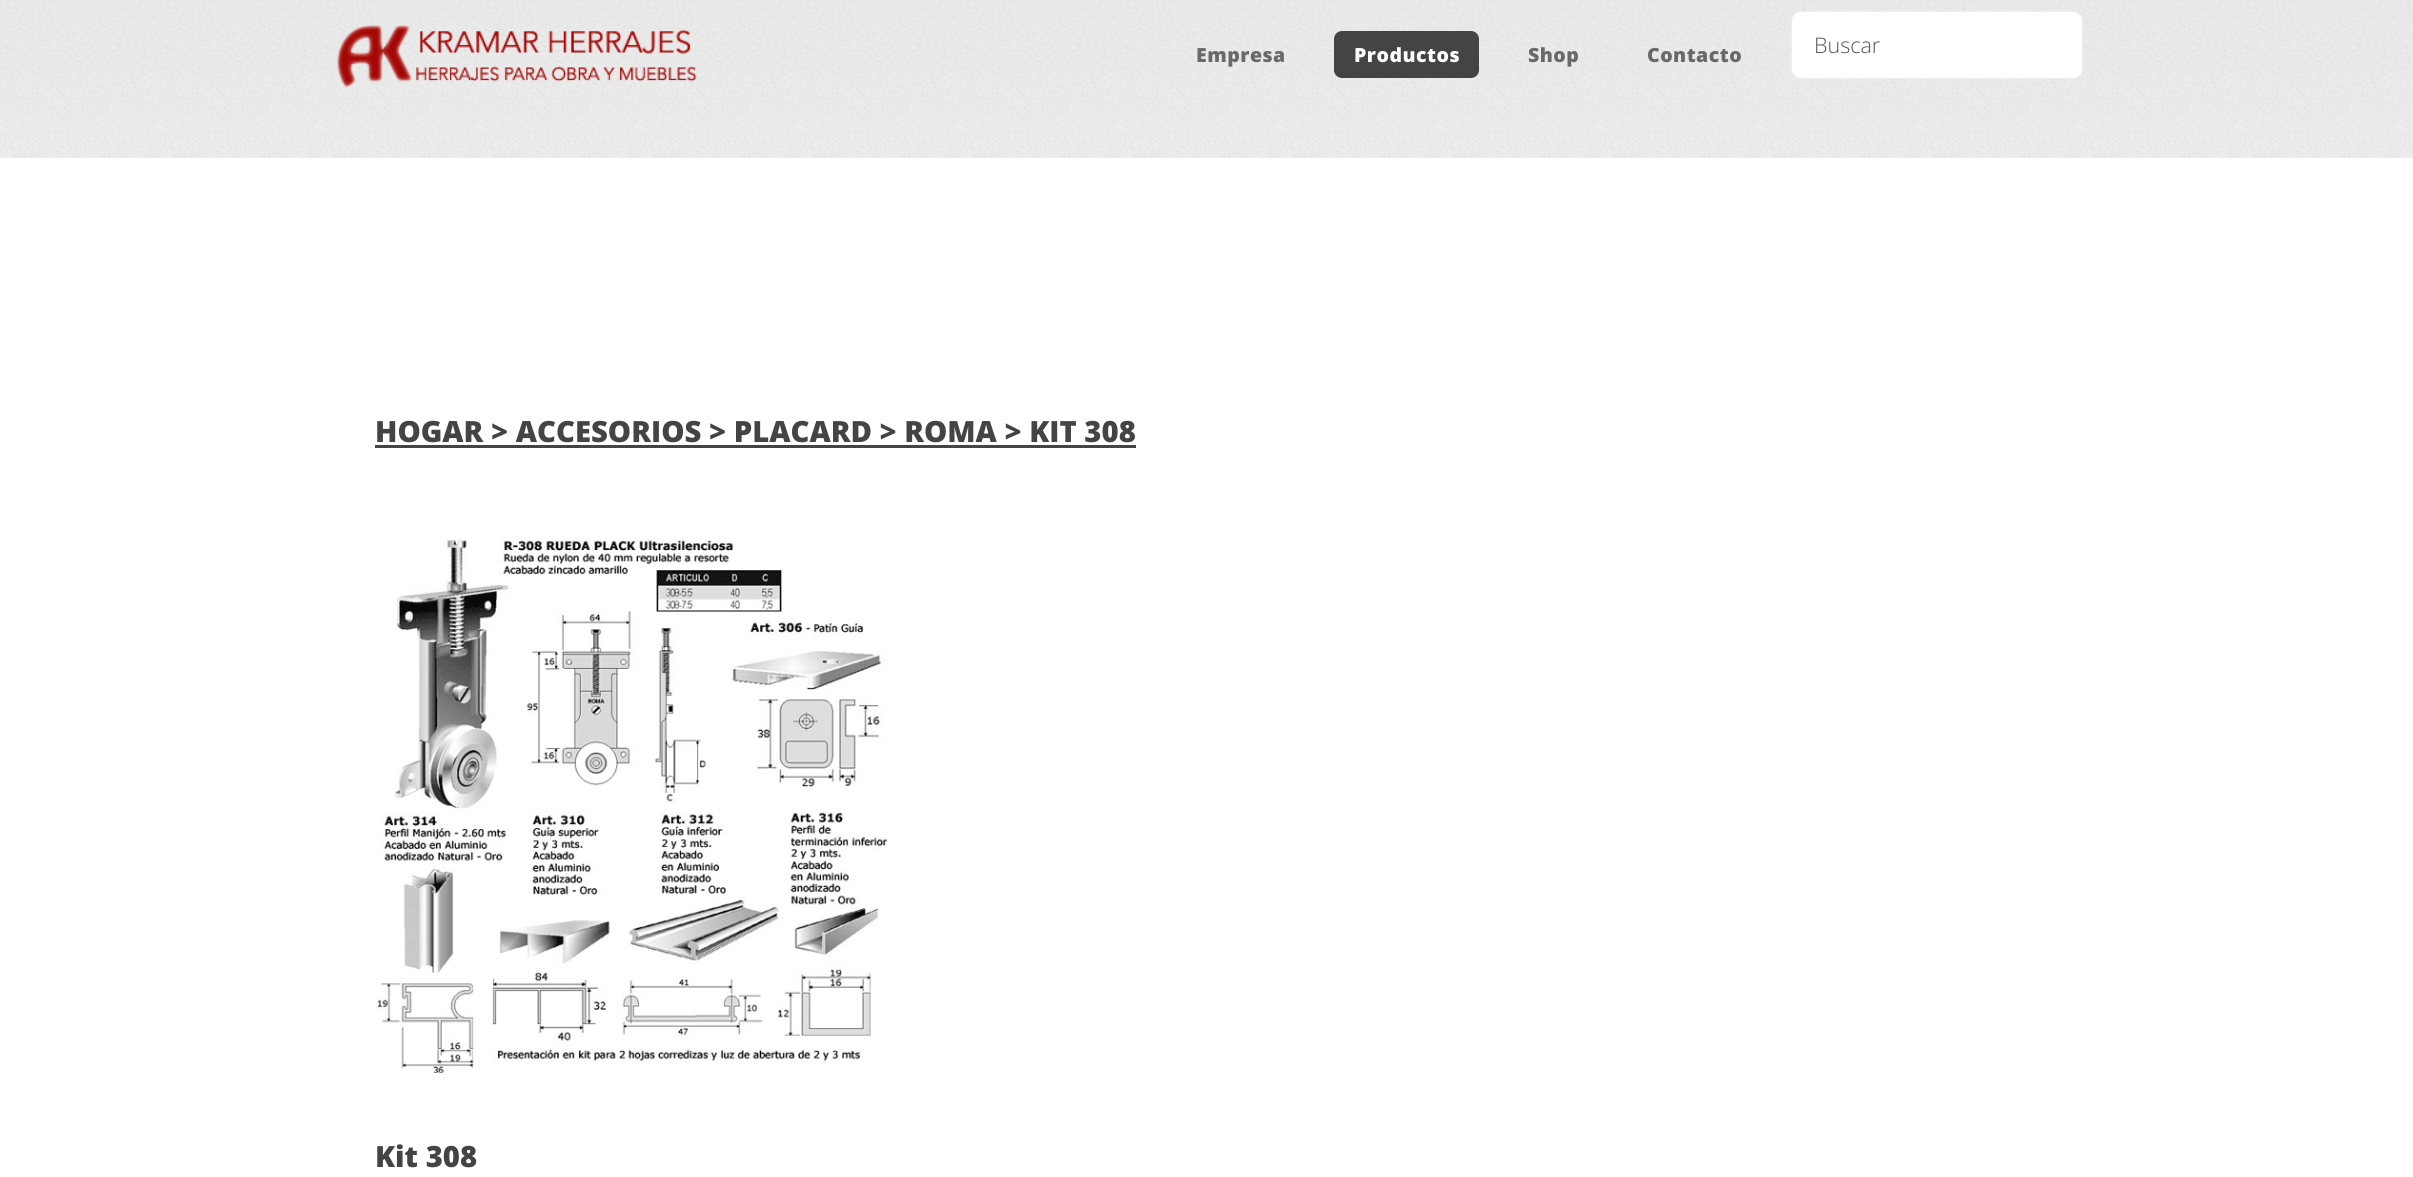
#include <cairo.h>
#include <math.h>
#include <stddef.h>


static void set_color(cairo_t *cr, unsigned color) {
    cairo_set_source_rgb(cr, (color >> 16) / 255.0, (color >> 8 & 255) / 255.0, (color & 255) / 255.0);
}

static void draw_text(cairo_t *cr, double x, double y, const char *s, const char *family, double size, int italic, int bold, unsigned color) {
    cairo_select_font_face(cr, family, italic ? CAIRO_FONT_SLANT_ITALIC : CAIRO_FONT_SLANT_NORMAL,
        bold ? CAIRO_FONT_WEIGHT_BOLD : CAIRO_FONT_WEIGHT_NORMAL);
    cairo_set_font_size(cr, size);
    set_color(cr, color);
    cairo_move_to(cr, x, y);
    cairo_show_text(cr, s);
}

static void draw_spaced(cairo_t *cr, double x, double y, const char *s, double letter, double word) {
    cairo_move_to(cr, x, y);
    while (*s) {
        char ch[5] = {0};
        int n = 0;
        do ch[n++] = *s++; while ((*s & 0xC0) == 0x80);
        cairo_show_text(cr, ch);
        cairo_rel_move_to(cr, letter + word * (*ch == ' '), 0);
    }
}

static void fill_rect(cairo_t *cr, double x, double y, double w, double h, unsigned color) {
    set_color(cr, color);
    cairo_rectangle(cr, x, y, w, h);
    cairo_fill(cr);
}

static void rounded_rect(cairo_t *cr, double x, double y, double w, double h, double r) {
    cairo_new_sub_path(cr);
    cairo_arc(cr, x + w - r, y + h - r, r, 0, M_PI / 2);
    cairo_arc(cr, x + r, y + h - r, r, M_PI / 2, M_PI);
    cairo_arc(cr, x + r, y + r, r, M_PI, 1.5 * M_PI);
    cairo_arc(cr, x + w - r, y + r, r, 1.5 * M_PI, 2 * M_PI);
    cairo_close_path(cr);
}

static void draw_image(cairo_t *cr, const char *path, double x, double y, double w, double h) {
    cairo_surface_t *image = cairo_image_surface_create_from_png(path);
    cairo_save(cr);
    cairo_set_source_surface(cr, image, x, y);
    cairo_rectangle(cr, x, y, w, h);
    cairo_fill(cr);
    cairo_restore(cr);
    cairo_surface_destroy(image);
}

int main(void) {
    cairo_surface_t *surface = cairo_image_surface_create(CAIRO_FORMAT_RGB24, 2413, 1177);
    cairo_t *cr = cairo_create(surface);
    cairo_font_options_t *options = cairo_font_options_create();
    cairo_font_options_set_hint_metrics(options, CAIRO_HINT_METRICS_OFF);
    cairo_font_options_set_hint_style(options, CAIRO_HINT_STYLE_NONE);
    cairo_set_font_options(cr, options);
    cairo_set_miter_limit(cr, 4);
    set_color(cr, 0xF7F7F7);
    cairo_paint(cr);
    draw_image(cr, "assets/img1.png", 0, 0, 2413, 158);
    draw_image(cr, "assets/img2.png", 337, 25, 360, 63);
    cairo_select_font_face(cr, "Open Sans ExtraBold", CAIRO_FONT_SLANT_NORMAL, CAIRO_FONT_WEIGHT_NORMAL);
    cairo_set_font_size(cr, 19.5);
    set_color(cr, 0x696969);
    draw_spaced(cr, 1196, 62, "Empresa", 0.5, 0);
    set_color(cr, 0x444444);
    rounded_rect(cr, 1334, 31, 145, 47, 8);
    cairo_fill(cr);
    set_color(cr, 0xFFFFFF);
    draw_spaced(cr, 1354, 62, "Productos", 0.5, 0);
    set_color(cr, 0x696969);
    draw_spaced(cr, 1528, 62, "Shop", 0.5, 0);
    draw_spaced(cr, 1647, 62, "Contacto", 0.5, 0);
    set_color(cr, 0xFFFFFF);
    rounded_rect(cr, 1791.5, 11.5, 291, 67, 9.5);
    cairo_fill_preserve(cr);
    set_color(cr, 0xEEEEEE);
    cairo_set_line_width(cr, 1);
    cairo_stroke(cr);
    draw_text(cr, 1814, 53, "Buscar", "Open Sans Light", 21.5, 0, 0, 0x555555);
    fill_rect(cr, 0, 158, 2413, 1019, 0xFFFFFF);
    draw_text(cr, 375, 442, "HOGAR > ACCESORIOS > PLACARD > ROMA > KIT 308", "Open Sans ExtraBold", 29.25, 0, 0, 0x444444);
    fill_rect(cr, 375, 445, 761, 3, 0x444444);
    draw_image(cr, "assets/img3.png", 376, 537, 512, 538);
    draw_text(cr, 375, 1167, "Kit 308", "Open Sans ExtraBold", 29.25, 0, 0, 0x444444);
    cairo_surface_write_to_png(surface, "output.png");
    cairo_font_options_destroy(options);
    cairo_destroy(cr);
    cairo_surface_destroy(surface);
    return 0;
}
